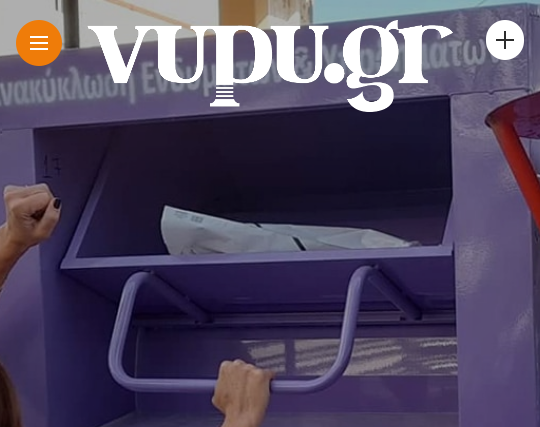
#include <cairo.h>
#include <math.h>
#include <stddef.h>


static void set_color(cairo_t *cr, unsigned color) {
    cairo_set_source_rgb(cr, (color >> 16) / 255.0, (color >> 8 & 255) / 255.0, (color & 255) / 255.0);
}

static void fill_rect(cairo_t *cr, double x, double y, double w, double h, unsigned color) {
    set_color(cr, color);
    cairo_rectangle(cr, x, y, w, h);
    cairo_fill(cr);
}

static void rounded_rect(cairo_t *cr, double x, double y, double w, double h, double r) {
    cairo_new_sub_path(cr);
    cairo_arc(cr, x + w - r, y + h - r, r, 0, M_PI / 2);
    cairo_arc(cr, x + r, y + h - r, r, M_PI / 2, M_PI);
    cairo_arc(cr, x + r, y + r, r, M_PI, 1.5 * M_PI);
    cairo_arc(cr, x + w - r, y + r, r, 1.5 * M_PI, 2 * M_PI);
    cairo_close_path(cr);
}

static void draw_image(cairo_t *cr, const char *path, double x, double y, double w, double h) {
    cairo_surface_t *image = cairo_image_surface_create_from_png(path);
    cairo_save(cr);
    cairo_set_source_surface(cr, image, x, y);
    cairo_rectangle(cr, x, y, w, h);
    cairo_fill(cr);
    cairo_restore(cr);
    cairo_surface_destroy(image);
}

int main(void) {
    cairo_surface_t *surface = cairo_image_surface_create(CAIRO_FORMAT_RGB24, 540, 427);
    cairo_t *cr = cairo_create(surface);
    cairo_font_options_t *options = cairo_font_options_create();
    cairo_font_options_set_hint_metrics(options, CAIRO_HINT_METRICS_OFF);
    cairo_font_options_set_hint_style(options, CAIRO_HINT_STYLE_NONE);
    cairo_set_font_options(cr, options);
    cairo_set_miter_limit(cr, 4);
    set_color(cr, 0xFFFFFF);
    cairo_paint(cr);
    draw_image(cr, "assets/img1.png", 0, 0, 540, 427);
    set_color(cr, 0xEF7C09);
    cairo_arc(cr, 39, 43, 23, 0, 2 * M_PI);
    cairo_fill(cr);
    fill_rect(cr, 30, 36, 18, 2, 0xFFFFFF);
    fill_rect(cr, 30, 42, 18, 2, 0xFFFFFF);
    fill_rect(cr, 30, 48, 18, 2, 0xFFFFFF);
    draw_image(cr, "assets/img2.png", 87, 20, 366, 92);
    rounded_rect(cr, 486, 20, 38, 40, 19);
    cairo_fill(cr);
    fill_rect(cr, 496, 39, 18, 2, 0x2D2D2D);
    fill_rect(cr, 504, 31, 2, 18, 0x2D2D2D);
    cairo_surface_write_to_png(surface, "output.png");
    cairo_font_options_destroy(options);
    cairo_destroy(cr);
    cairo_surface_destroy(surface);
    return 0;
}
